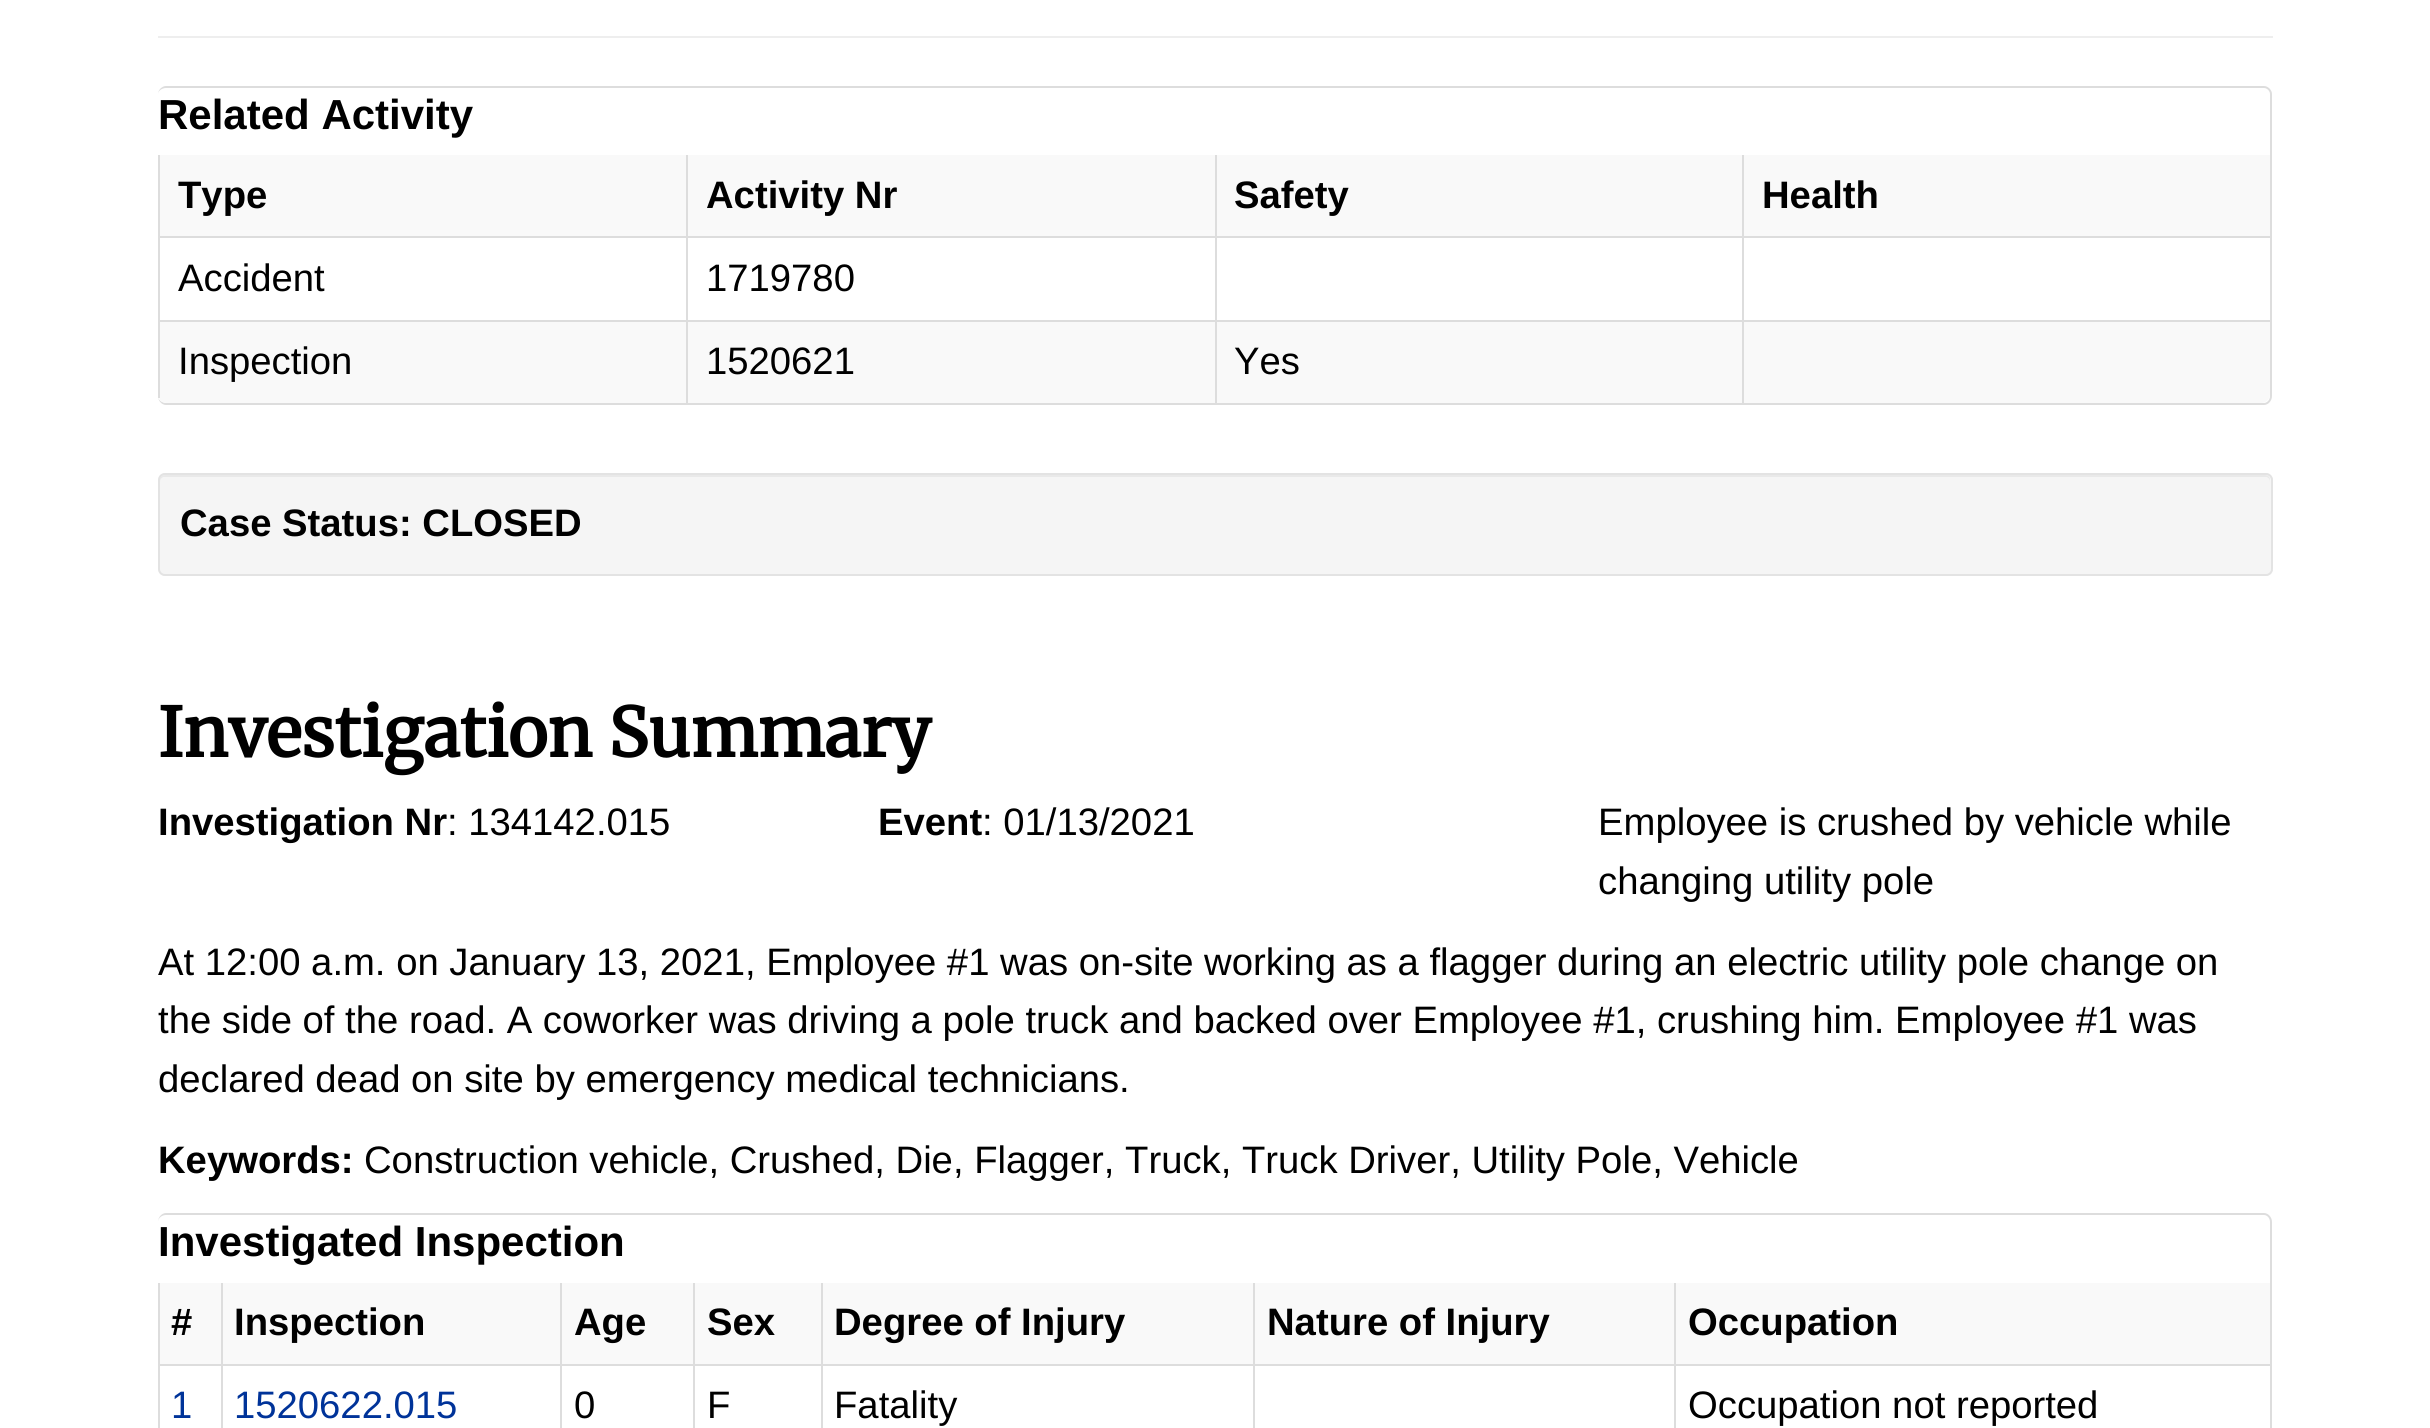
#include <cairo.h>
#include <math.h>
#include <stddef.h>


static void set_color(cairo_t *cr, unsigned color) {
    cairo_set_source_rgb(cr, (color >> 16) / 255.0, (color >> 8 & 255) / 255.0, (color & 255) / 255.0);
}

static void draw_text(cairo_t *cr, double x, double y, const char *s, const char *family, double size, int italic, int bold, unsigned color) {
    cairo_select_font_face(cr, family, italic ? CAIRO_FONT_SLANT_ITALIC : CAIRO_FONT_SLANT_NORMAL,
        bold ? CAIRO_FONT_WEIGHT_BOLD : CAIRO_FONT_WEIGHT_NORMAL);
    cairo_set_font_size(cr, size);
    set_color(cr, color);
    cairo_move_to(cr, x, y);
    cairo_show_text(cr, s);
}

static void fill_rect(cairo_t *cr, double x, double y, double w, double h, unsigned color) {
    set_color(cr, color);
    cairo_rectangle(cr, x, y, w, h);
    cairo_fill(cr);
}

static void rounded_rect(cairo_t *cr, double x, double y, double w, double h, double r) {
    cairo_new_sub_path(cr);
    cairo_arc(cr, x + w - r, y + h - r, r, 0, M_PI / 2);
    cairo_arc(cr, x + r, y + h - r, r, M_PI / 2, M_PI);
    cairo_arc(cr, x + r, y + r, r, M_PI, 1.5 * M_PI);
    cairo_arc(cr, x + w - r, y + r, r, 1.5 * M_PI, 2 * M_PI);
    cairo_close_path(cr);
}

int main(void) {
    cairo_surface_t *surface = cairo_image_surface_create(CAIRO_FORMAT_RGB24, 2430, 1428);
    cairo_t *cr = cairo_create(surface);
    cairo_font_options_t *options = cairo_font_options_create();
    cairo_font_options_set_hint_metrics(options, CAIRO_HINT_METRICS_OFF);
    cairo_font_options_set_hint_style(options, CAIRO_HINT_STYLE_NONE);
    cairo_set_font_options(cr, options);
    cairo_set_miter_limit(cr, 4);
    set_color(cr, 0xFFFFFF);
    cairo_paint(cr);
    fill_rect(cr, 158, 36, 2115, 2, 0xEEEEEE);
    set_color(cr, 0xDDDDDD);
    cairo_set_fill_rule(cr, CAIRO_FILL_RULE_EVEN_ODD);
    cairo_new_path(cr);
    cairo_move_to(cr, 166, 86);
    cairo_line_to(cr, 2264, 86);
    cairo_curve_to(cr, 2268, 86, 2272, 90, 2272, 94);
    cairo_line_to(cr, 2272, 396);
    cairo_curve_to(cr, 2272, 401, 2268, 405, 2264, 405);
    cairo_line_to(cr, 166, 405);
    cairo_curve_to(cr, 162, 405, 158, 401, 158, 396);
    cairo_line_to(cr, 158, 94);
    cairo_curve_to(cr, 158, 90, 162, 86, 166, 86);
    cairo_close_path(cr);
    cairo_move_to(cr, 166, 88);
    cairo_line_to(cr, 2264, 88);
    cairo_curve_to(cr, 2267, 88, 2270, 91, 2270, 94);
    cairo_line_to(cr, 2270, 396);
    cairo_curve_to(cr, 2270, 400, 2267, 403, 2264, 403);
    cairo_line_to(cr, 166, 403);
    cairo_curve_to(cr, 162, 403, 158, 400, 158, 396);
    cairo_line_to(cr, 158, 94);
    cairo_curve_to(cr, 158, 91, 162, 88, 166, 88);
    cairo_close_path(cr);
    cairo_fill(cr);
    draw_text(cr, 158, 129, "Related Activity", "Liberation Sans", 42, 0, 1, 0x000000);
    fill_rect(cr, 160, 155, 526, 81, 0xF9F9F9);
    fill_rect(cr, 158, 155, 2, 81, 0xDDDDDD);
    draw_text(cr, 178, 208, "Type", "Liberation Sans", 38.25, 0, 1, 0x000000);
    fill_rect(cr, 688, 155, 527, 81, 0xF9F9F9);
    fill_rect(cr, 686, 155, 2, 81, 0xDDDDDD);
    draw_text(cr, 706, 208, "Activity Nr", "Liberation Sans", 38.25, 0, 1, 0x000000);
    fill_rect(cr, 1217, 155, 525, 81, 0xF9F9F9);
    fill_rect(cr, 1215, 155, 2, 81, 0xDDDDDD);
    draw_text(cr, 1234, 208, "Safety", "Liberation Sans", 38.25, 0, 1, 0x000000);
    fill_rect(cr, 1744, 155, 526, 81, 0xF9F9F9);
    fill_rect(cr, 1742, 155, 2, 81, 0xDDDDDD);
    draw_text(cr, 1762, 208, "Health", "Liberation Sans", 38.25, 0, 1, 0x000000);
    fill_rect(cr, 158, 236, 2112, 2, 0xDDDDDD);
    fill_rect(cr, 158, 236, 2, 84, 0xDDDDDD);
    draw_text(cr, 178, 291, "Accident", "Liberation Sans", 38.25, 0, 0, 0x000000);
    fill_rect(cr, 686, 236, 2, 84, 0xDDDDDD);
    draw_text(cr, 706, 291, "1719780", "Liberation Sans", 38.25, 0, 0, 0x000000);
    fill_rect(cr, 1215, 236, 2, 84, 0xDDDDDD);
    fill_rect(cr, 1742, 236, 2, 84, 0xDDDDDD);
    set_color(cr, 0xF9F9F9);
    cairo_new_path(cr);
    cairo_move_to(cr, 158, 320);
    cairo_line_to(cr, 686, 320);
    cairo_line_to(cr, 686, 403);
    cairo_line_to(cr, 167, 403);
    cairo_curve_to(cr, 162, 403, 158, 399, 158, 394);
    cairo_close_path(cr);
    cairo_fill(cr);
    fill_rect(cr, 158, 320, 1584, 2, 0xDDDDDD);
    fill_rect(cr, 158, 320, 2, 78, 0xDDDDDD);
    draw_text(cr, 178, 374, "Inspection", "Liberation Sans", 38.25, 0, 0, 0x000000);
    fill_rect(cr, 688, 322, 527, 81, 0xF9F9F9);
    fill_rect(cr, 686, 320, 2, 83, 0xDDDDDD);
    draw_text(cr, 706, 374, "1520621", "Liberation Sans", 38.25, 0, 0, 0x000000);
    fill_rect(cr, 1217, 322, 525, 81, 0xF9F9F9);
    fill_rect(cr, 1215, 320, 2, 83, 0xDDDDDD);
    draw_text(cr, 1234, 374, "Yes", "Liberation Sans", 38.25, 0, 0, 0x000000);
    set_color(cr, 0xF9F9F9);
    cairo_new_path(cr);
    cairo_move_to(cr, 1742, 320);
    cairo_line_to(cr, 2270, 320);
    cairo_line_to(cr, 2270, 394);
    cairo_curve_to(cr, 2270, 399, 2266, 403, 2261, 403);
    cairo_line_to(cr, 1742, 403);
    cairo_close_path(cr);
    cairo_fill(cr);
    fill_rect(cr, 1742, 320, 528, 2, 0xDDDDDD);
    fill_rect(cr, 1742, 320, 2, 83, 0xDDDDDD);
    set_color(cr, 0xF5F5F5);
    rounded_rect(cr, 158, 473, 2115, 103, 7);
    cairo_fill(cr);
    set_color(cr, 0xE9E9E9);
    cairo_set_fill_rule(cr, CAIRO_FILL_RULE_WINDING);
    cairo_new_path(cr);
    cairo_move_to(cr, 164, 477);
    cairo_line_to(cr, 2266, 477);
    cairo_curve_to(cr, 2268, 477, 2270, 479, 2270, 482);
    cairo_line_to(cr, 2270, 480);
    cairo_curve_to(cr, 2270, 477, 2268, 475, 2265, 475);
    cairo_line_to(cr, 165, 475);
    cairo_curve_to(cr, 162, 475, 160, 477, 160, 480);
    cairo_line_to(cr, 160, 482);
    cairo_curve_to(cr, 160, 479, 162, 477, 164, 477);
    cairo_close_path(cr);
    cairo_fill(cr);
    rounded_rect(cr, 159, 474, 2113, 101, 6);
    set_color(cr, 0xE3E3E3);
    cairo_stroke(cr);
    draw_text(cr, 180, 536, "Case Status: CLOSED", "Liberation Sans", 38.25, 0, 1, 0x000000);
    draw_text(cr, 158, 757, "Investigation Summary", "Merriweather", 67.5, 0, 1, 0x000000);
    draw_text(cr, 158, 835, "Investigation Nr", "Liberation Sans", 38.25, 0, 1, 0x000000);
    draw_text(cr, 447, 835, ": 134142.015", "Liberation Sans", 38.25, 0, 0, 0x000000);
    draw_text(cr, 878, 835, "Event", "Liberation Sans", 38.25, 0, 1, 0x000000);
    draw_text(cr, 982, 835, ": 01/13/2021", "Liberation Sans", 38.25, 0, 0, 0x000000);
    draw_text(cr, 1598, 835, "Employee is crushed by vehicle while", "Liberation Sans", 38.25, 0, 0, 0x000000);
    draw_text(cr, 1598, 894, "changing utility pole", "Liberation Sans", 38.25, 0, 0, 0x000000);
    draw_text(cr, 158, 975, "At 12:00 a.m. on January 13, 2021, Employee #1 was on-site working as a flagger during an electric utility pole change on", "Liberation Sans", 38.25, 0, 0, 0x000000);
    draw_text(cr, 158, 1033, "the side of the road. A coworker was driving a pole truck and backed over Employee #1, crushing him. Employee #1 was", "Liberation Sans", 38.25, 0, 0, 0x000000);
    draw_text(cr, 158, 1092, "declared dead on site by emergency medical technicians.", "Liberation Sans", 38.25, 0, 0, 0x000000);
    draw_text(cr, 158, 1173, "Keywords:", "Liberation Sans", 38.25, 0, 1, 0x000000);
    draw_text(cr, 364, 1173, "Construction vehicle, Crushed, Die, Flagger, Truck, Truck Driver, Utility Pole, Vehicle", "Liberation Sans", 38.25, 0, 0, 0x000000);
    set_color(cr, 0xDDDDDD);
    cairo_set_fill_rule(cr, CAIRO_FILL_RULE_EVEN_ODD);
    cairo_new_path(cr);
    cairo_move_to(cr, 166, 1213);
    cairo_line_to(cr, 2264, 1213);
    cairo_curve_to(cr, 2268, 1213, 2272, 1217, 2272, 1222);
    cairo_line_to(cr, 2272, 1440);
    cairo_curve_to(cr, 2272, 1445, 2268, 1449, 2264, 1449);
    cairo_line_to(cr, 166, 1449);
    cairo_curve_to(cr, 162, 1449, 158, 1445, 158, 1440);
    cairo_line_to(cr, 158, 1222);
    cairo_curve_to(cr, 158, 1217, 162, 1213, 166, 1213);
    cairo_close_path(cr);
    cairo_move_to(cr, 166, 1215);
    cairo_line_to(cr, 2264, 1215);
    cairo_curve_to(cr, 2267, 1215, 2270, 1218, 2270, 1222);
    cairo_line_to(cr, 2270, 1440);
    cairo_curve_to(cr, 2270, 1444, 2267, 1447, 2264, 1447);
    cairo_line_to(cr, 166, 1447);
    cairo_curve_to(cr, 162, 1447, 158, 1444, 158, 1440);
    cairo_line_to(cr, 158, 1222);
    cairo_curve_to(cr, 158, 1218, 162, 1215, 166, 1215);
    cairo_close_path(cr);
    cairo_fill(cr);
    draw_text(cr, 158, 1256, "Investigated Inspection", "Liberation Sans", 42, 0, 1, 0x000000);
    fill_rect(cr, 160, 1283, 61, 81, 0xF9F9F9);
    fill_rect(cr, 158, 1283, 2, 81, 0xDDDDDD);
    draw_text(cr, 171, 1335, "#", "Liberation Sans", 38.25, 0, 1, 0x000000);
    fill_rect(cr, 223, 1283, 337, 81, 0xF9F9F9);
    fill_rect(cr, 221, 1283, 2, 81, 0xDDDDDD);
    draw_text(cr, 234, 1335, "Inspection", "Liberation Sans", 38.25, 0, 1, 0x000000);
    fill_rect(cr, 562, 1283, 131, 81, 0xF9F9F9);
    fill_rect(cr, 560, 1283, 2, 81, 0xDDDDDD);
    draw_text(cr, 574, 1335, "Age", "Liberation Sans", 38.25, 0, 1, 0x000000);
    fill_rect(cr, 695, 1283, 126, 81, 0xF9F9F9);
    fill_rect(cr, 693, 1283, 2, 81, 0xDDDDDD);
    draw_text(cr, 707, 1335, "Sex", "Liberation Sans", 38.25, 0, 1, 0x000000);
    fill_rect(cr, 823, 1283, 430, 81, 0xF9F9F9);
    fill_rect(cr, 821, 1283, 2, 81, 0xDDDDDD);
    draw_text(cr, 834, 1335, "Degree of Injury", "Liberation Sans", 38.25, 0, 1, 0x000000);
    fill_rect(cr, 1255, 1283, 419, 81, 0xF9F9F9);
    fill_rect(cr, 1253, 1283, 2, 81, 0xDDDDDD);
    draw_text(cr, 1267, 1335, "Nature of Injury", "Liberation Sans", 38.25, 0, 1, 0x000000);
    fill_rect(cr, 1676, 1283, 594, 81, 0xF9F9F9);
    fill_rect(cr, 1674, 1283, 2, 81, 0xDDDDDD);
    draw_text(cr, 1688, 1335, "Occupation", "Liberation Sans", 38.25, 0, 1, 0x000000);
    fill_rect(cr, 158, 1364, 2112, 2, 0xDDDDDD);
    fill_rect(cr, 158, 1364, 2, 64, 0xDDDDDD);
    draw_text(cr, 171, 1418, "1", "Liberation Sans", 38.25, 0, 0, 0x003399);
    fill_rect(cr, 221, 1364, 2, 64, 0xDDDDDD);
    draw_text(cr, 234, 1418, "1520622.015", "Liberation Sans", 38.25, 0, 0, 0x003399);
    fill_rect(cr, 560, 1364, 2, 64, 0xDDDDDD);
    draw_text(cr, 574, 1418, "0", "Liberation Sans", 38.25, 0, 0, 0x000000);
    fill_rect(cr, 693, 1364, 2, 64, 0xDDDDDD);
    draw_text(cr, 707, 1418, "F", "Liberation Sans", 38.25, 0, 0, 0x000000);
    fill_rect(cr, 821, 1364, 2, 64, 0xDDDDDD);
    draw_text(cr, 834, 1418, "Fatality", "Liberation Sans", 38.25, 0, 0, 0x000000);
    fill_rect(cr, 1253, 1364, 2, 64, 0xDDDDDD);
    fill_rect(cr, 1674, 1364, 2, 64, 0xDDDDDD);
    draw_text(cr, 1688, 1418, "Occupation not reported", "Liberation Sans", 38.25, 0, 0, 0x000000);
    cairo_surface_write_to_png(surface, "output.png");
    cairo_font_options_destroy(options);
    cairo_destroy(cr);
    cairo_surface_destroy(surface);
    return 0;
}
